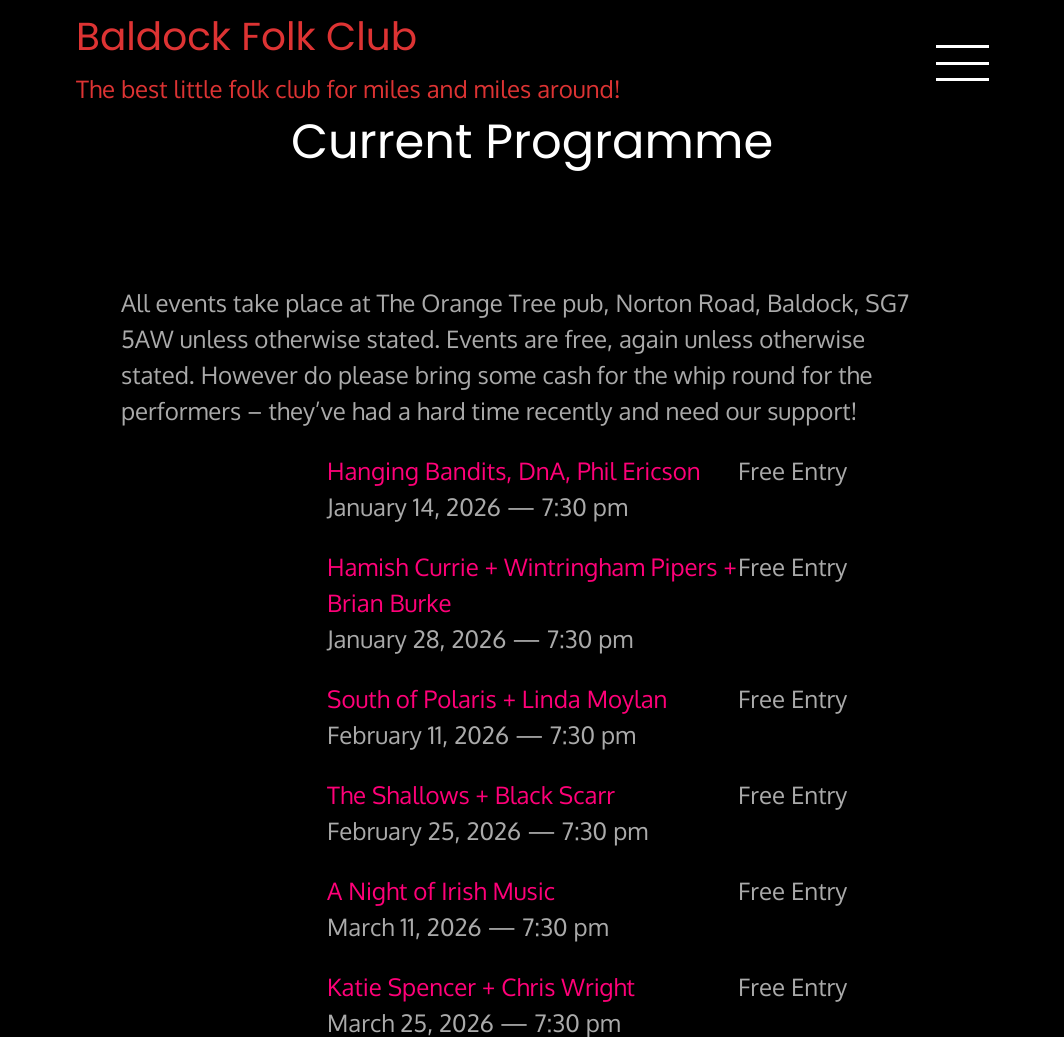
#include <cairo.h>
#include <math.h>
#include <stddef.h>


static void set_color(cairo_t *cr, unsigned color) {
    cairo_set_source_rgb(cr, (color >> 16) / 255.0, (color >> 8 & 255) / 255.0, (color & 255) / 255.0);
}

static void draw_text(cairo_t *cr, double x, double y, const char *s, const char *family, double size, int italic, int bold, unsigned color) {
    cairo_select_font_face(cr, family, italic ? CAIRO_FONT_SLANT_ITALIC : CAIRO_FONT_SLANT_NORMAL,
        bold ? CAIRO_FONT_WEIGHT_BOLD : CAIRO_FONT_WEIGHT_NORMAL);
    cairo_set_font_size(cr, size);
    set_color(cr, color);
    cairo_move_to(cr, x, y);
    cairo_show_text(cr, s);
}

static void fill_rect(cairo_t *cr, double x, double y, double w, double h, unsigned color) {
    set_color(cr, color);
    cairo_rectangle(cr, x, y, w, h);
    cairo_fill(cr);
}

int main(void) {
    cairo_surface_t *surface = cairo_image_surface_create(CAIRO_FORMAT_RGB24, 1064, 1037);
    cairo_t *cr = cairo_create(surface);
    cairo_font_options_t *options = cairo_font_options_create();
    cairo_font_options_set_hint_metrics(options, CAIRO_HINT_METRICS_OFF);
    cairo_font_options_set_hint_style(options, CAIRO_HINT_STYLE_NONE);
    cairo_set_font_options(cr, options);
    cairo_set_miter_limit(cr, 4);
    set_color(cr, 0x000000);
    cairo_paint(cr);
    draw_text(cr, 76, 50, "Baldock Folk Club", "Poppins", 39, 0, 0, 0xDD3333);
    draw_text(cr, 76, 98, "The best little folk club for miles and miles around!", "Oxygen", 24, 0, 0, 0xDD3333);
    fill_rect(cr, 936, 45, 53, 3, 0xFFFFFF);
    fill_rect(cr, 936, 62, 53, 3, 0xFFFFFF);
    fill_rect(cr, 936, 78, 53, 3, 0xFFFFFF);
    draw_text(cr, 291, 158, "Current Programme", "Poppins", 48, 0, 0, 0xFFFFFF);
    draw_text(cr, 121, 312, "All events take place at The Orange Tree pub, Norton Road, Baldock, SG7", "Oxygen", 24, 0, 0, 0xAAAAAA);
    draw_text(cr, 121, 348, "5AW unless otherwise stated. Events are free, again unless otherwise", "Oxygen", 24, 0, 0, 0xAAAAAA);
    draw_text(cr, 121, 384, "stated. However do please bring some cash for the whip round for the", "Oxygen", 24, 0, 0, 0xAAAAAA);
    draw_text(cr, 121, 420, "performers – they’ve had a hard time recently and need our support!", "Oxygen", 24, 0, 0, 0xAAAAAA);
    draw_text(cr, 327, 480, "Hanging Bandits, DnA, Phil Ericson", "Oxygen", 24, 0, 0, 0xFF0078);
    draw_text(cr, 738, 480, "Free Entry", "Oxygen", 24, 0, 0, 0xAAAAAA);
    draw_text(cr, 327, 516, "January 14, 2026 — 7:30 pm", "Oxygen", 24, 0, 0, 0xAAAAAA);
    draw_text(cr, 327, 576, "Hamish Currie + Wintringham Pipers +", "Oxygen", 24, 0, 0, 0xFF0078);
    draw_text(cr, 327, 612, "Brian Burke", "Oxygen", 24, 0, 0, 0xFF0078);
    draw_text(cr, 738, 576, "Free Entry", "Oxygen", 24, 0, 0, 0xAAAAAA);
    draw_text(cr, 327, 648, "January 28, 2026 — 7:30 pm", "Oxygen", 24, 0, 0, 0xAAAAAA);
    draw_text(cr, 327, 708, "South of Polaris + Linda Moylan", "Oxygen", 24, 0, 0, 0xFF0078);
    draw_text(cr, 738, 708, "Free Entry", "Oxygen", 24, 0, 0, 0xAAAAAA);
    draw_text(cr, 327, 744, "February 11, 2026 — 7:30 pm", "Oxygen", 24, 0, 0, 0xAAAAAA);
    draw_text(cr, 327, 804, "The Shallows + Black Scarr", "Oxygen", 24, 0, 0, 0xFF0078);
    draw_text(cr, 738, 804, "Free Entry", "Oxygen", 24, 0, 0, 0xAAAAAA);
    draw_text(cr, 327, 840, "February 25, 2026 — 7:30 pm", "Oxygen", 24, 0, 0, 0xAAAAAA);
    draw_text(cr, 327, 900, "A Night of Irish Music", "Oxygen", 24, 0, 0, 0xFF0078);
    draw_text(cr, 738, 900, "Free Entry", "Oxygen", 24, 0, 0, 0xAAAAAA);
    draw_text(cr, 327, 936, "March 11, 2026 — 7:30 pm", "Oxygen", 24, 0, 0, 0xAAAAAA);
    draw_text(cr, 327, 996, "Katie Spencer + Chris Wright", "Oxygen", 24, 0, 0, 0xFF0078);
    draw_text(cr, 738, 996, "Free Entry", "Oxygen", 24, 0, 0, 0xAAAAAA);
    draw_text(cr, 327, 1032, "March 25, 2026 — 7:30 pm", "Oxygen", 24, 0, 0, 0xAAAAAA);
    cairo_surface_write_to_png(surface, "output.png");
    cairo_font_options_destroy(options);
    cairo_destroy(cr);
    cairo_surface_destroy(surface);
    return 0;
}
